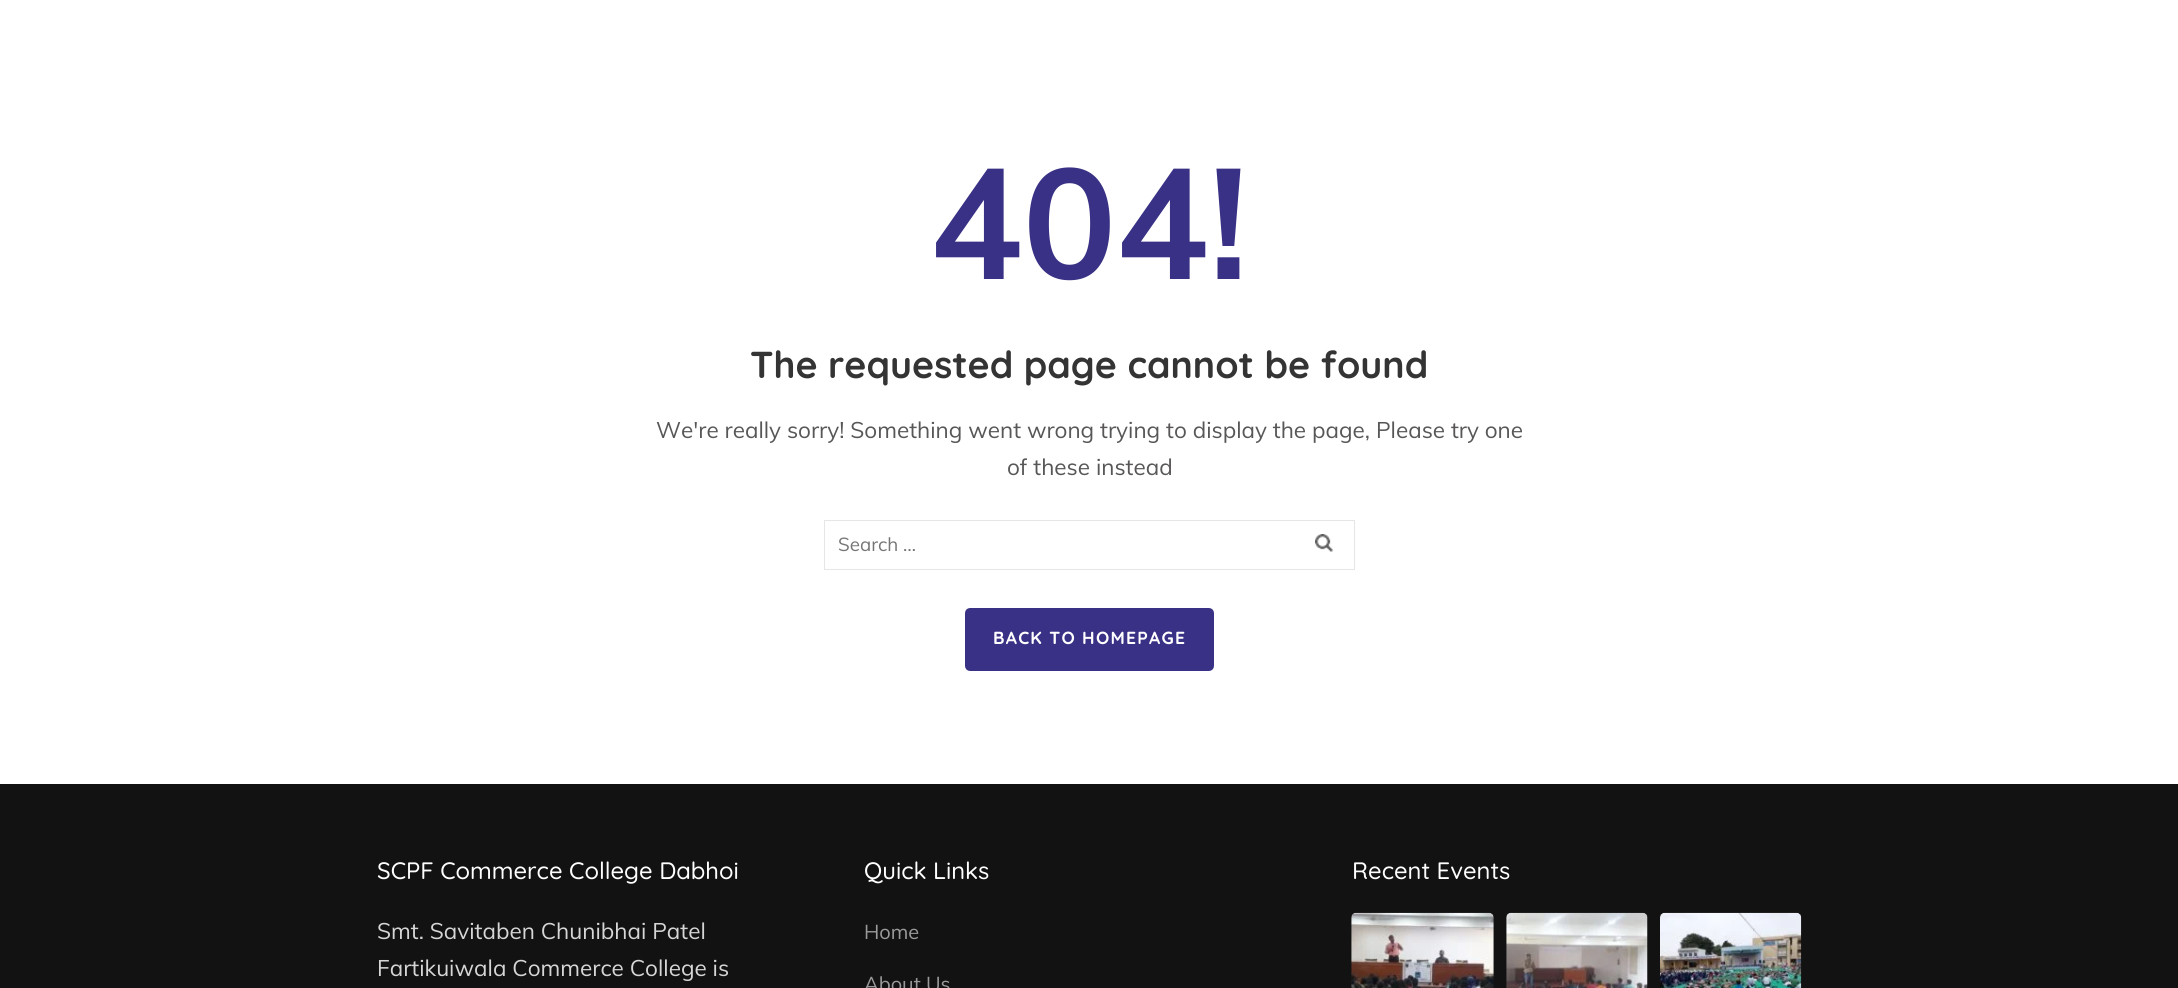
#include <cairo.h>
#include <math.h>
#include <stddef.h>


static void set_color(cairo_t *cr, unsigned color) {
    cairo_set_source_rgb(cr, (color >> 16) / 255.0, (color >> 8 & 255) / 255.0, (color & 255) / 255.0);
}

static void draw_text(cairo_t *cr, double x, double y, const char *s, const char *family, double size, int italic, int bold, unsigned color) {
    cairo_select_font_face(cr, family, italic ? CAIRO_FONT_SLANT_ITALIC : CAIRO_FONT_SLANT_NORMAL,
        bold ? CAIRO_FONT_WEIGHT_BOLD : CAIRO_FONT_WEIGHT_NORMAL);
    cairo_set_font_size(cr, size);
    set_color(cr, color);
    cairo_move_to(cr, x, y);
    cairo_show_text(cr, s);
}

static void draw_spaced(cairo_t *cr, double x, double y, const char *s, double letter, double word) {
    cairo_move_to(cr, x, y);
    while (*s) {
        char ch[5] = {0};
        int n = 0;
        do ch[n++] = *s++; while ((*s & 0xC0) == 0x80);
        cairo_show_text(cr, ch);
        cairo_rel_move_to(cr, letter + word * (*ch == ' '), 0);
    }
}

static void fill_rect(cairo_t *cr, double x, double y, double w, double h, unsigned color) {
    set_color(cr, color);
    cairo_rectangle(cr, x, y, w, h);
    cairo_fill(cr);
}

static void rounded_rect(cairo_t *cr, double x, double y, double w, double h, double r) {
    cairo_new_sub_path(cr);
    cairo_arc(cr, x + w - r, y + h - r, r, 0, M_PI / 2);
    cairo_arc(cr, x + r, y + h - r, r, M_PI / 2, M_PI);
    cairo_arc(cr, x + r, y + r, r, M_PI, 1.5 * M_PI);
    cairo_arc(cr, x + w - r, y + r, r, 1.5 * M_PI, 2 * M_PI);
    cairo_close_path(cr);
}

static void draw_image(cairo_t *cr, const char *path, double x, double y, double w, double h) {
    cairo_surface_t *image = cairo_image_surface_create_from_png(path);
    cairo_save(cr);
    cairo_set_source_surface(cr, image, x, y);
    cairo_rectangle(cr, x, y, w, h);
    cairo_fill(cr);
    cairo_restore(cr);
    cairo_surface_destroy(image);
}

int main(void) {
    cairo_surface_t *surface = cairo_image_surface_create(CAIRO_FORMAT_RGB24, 2178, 988);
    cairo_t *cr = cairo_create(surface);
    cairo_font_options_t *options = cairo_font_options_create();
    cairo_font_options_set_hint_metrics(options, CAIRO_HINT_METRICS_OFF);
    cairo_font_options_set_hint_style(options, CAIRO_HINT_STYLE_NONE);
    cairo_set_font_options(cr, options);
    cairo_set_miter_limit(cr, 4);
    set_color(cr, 0xFFFFFF);
    cairo_paint(cr);
    draw_text(cr, 930, 279, "404!", "Muli", 155, 0, 1, 0x393185);
    draw_text(cr, 750, 378, "The requested page cannot be found", "Quicksand", 37.5, 0, 1, 0x343434);
    draw_text(cr, 656, 438, "We're really sorry! Something went wrong trying to display the page, Please try one", "Muli", 22.5, 0, 0, 0x585656);
    draw_text(cr, 1007, 475, "of these instead", "Muli", 22.5, 0, 0, 0x585656);
    cairo_rectangle(cr, 824.5, 520.5, 530, 49);
    set_color(cr, 0xE6E6E6);
    cairo_set_line_width(cr, 1);
    cairo_stroke(cr);
    draw_text(cr, 838, 551, "Search …", "Muli", 18.75, 0, 0, 0x757575);
    draw_image(cr, "assets/img1.png", 1315, 534, 18, 18);
    set_color(cr, 0x393185);
    rounded_rect(cr, 966.5, 609.5, 246, 60, 3.5);
    cairo_fill_preserve(cr);
    cairo_set_line_width(cr, 3);
    cairo_stroke(cr);
    cairo_select_font_face(cr, "Quicksand", CAIRO_FONT_SLANT_NORMAL, CAIRO_FONT_WEIGHT_BOLD);
    cairo_set_font_size(cr, 17.5);
    set_color(cr, 0xFFFFFF);
    draw_spaced(cr, 993, 644, "BACK TO HOMEPAGE", 1.25, 0);
    fill_rect(cr, 0, 784, 2178, 204, 0x121212);
    draw_text(cr, 377, 879, "SCPF Commerce College Dabhoi", "Quicksand Medium", 23.75, 0, 0, 0xFFFFFF);
    draw_text(cr, 377, 939, "Smt. Savitaben Chunibhai Patel", "Muli", 22.5, 0, 0, 0xD6D6D6);
    draw_text(cr, 377, 976, "Fartikuiwala Commerce College is", "Muli", 22.5, 0, 0, 0xD6D6D6);
    draw_text(cr, 864, 879, "Quick Links", "Quicksand Medium", 23.75, 0, 0, 0xFFFFFF);
    draw_text(cr, 864, 939, "Home", "Muli", 20, 0, 0, 0x9A9A9A);
    draw_text(cr, 864, 991, "About Us", "Muli", 20, 0, 0, 0x9A9A9A);
    draw_text(cr, 1352, 879, "Recent Events", "Quicksand Medium", 23.75, 0, 0, 0xFFFFFF);
    draw_image(cr, "assets/img2.png", 1351, 912, 143, 76);
    draw_image(cr, "assets/img3.png", 1506, 912, 142, 76);
    draw_image(cr, "assets/img4.png", 1660, 912, 142, 76);
    cairo_surface_write_to_png(surface, "output.png");
    cairo_font_options_destroy(options);
    cairo_destroy(cr);
    cairo_surface_destroy(surface);
    return 0;
}
